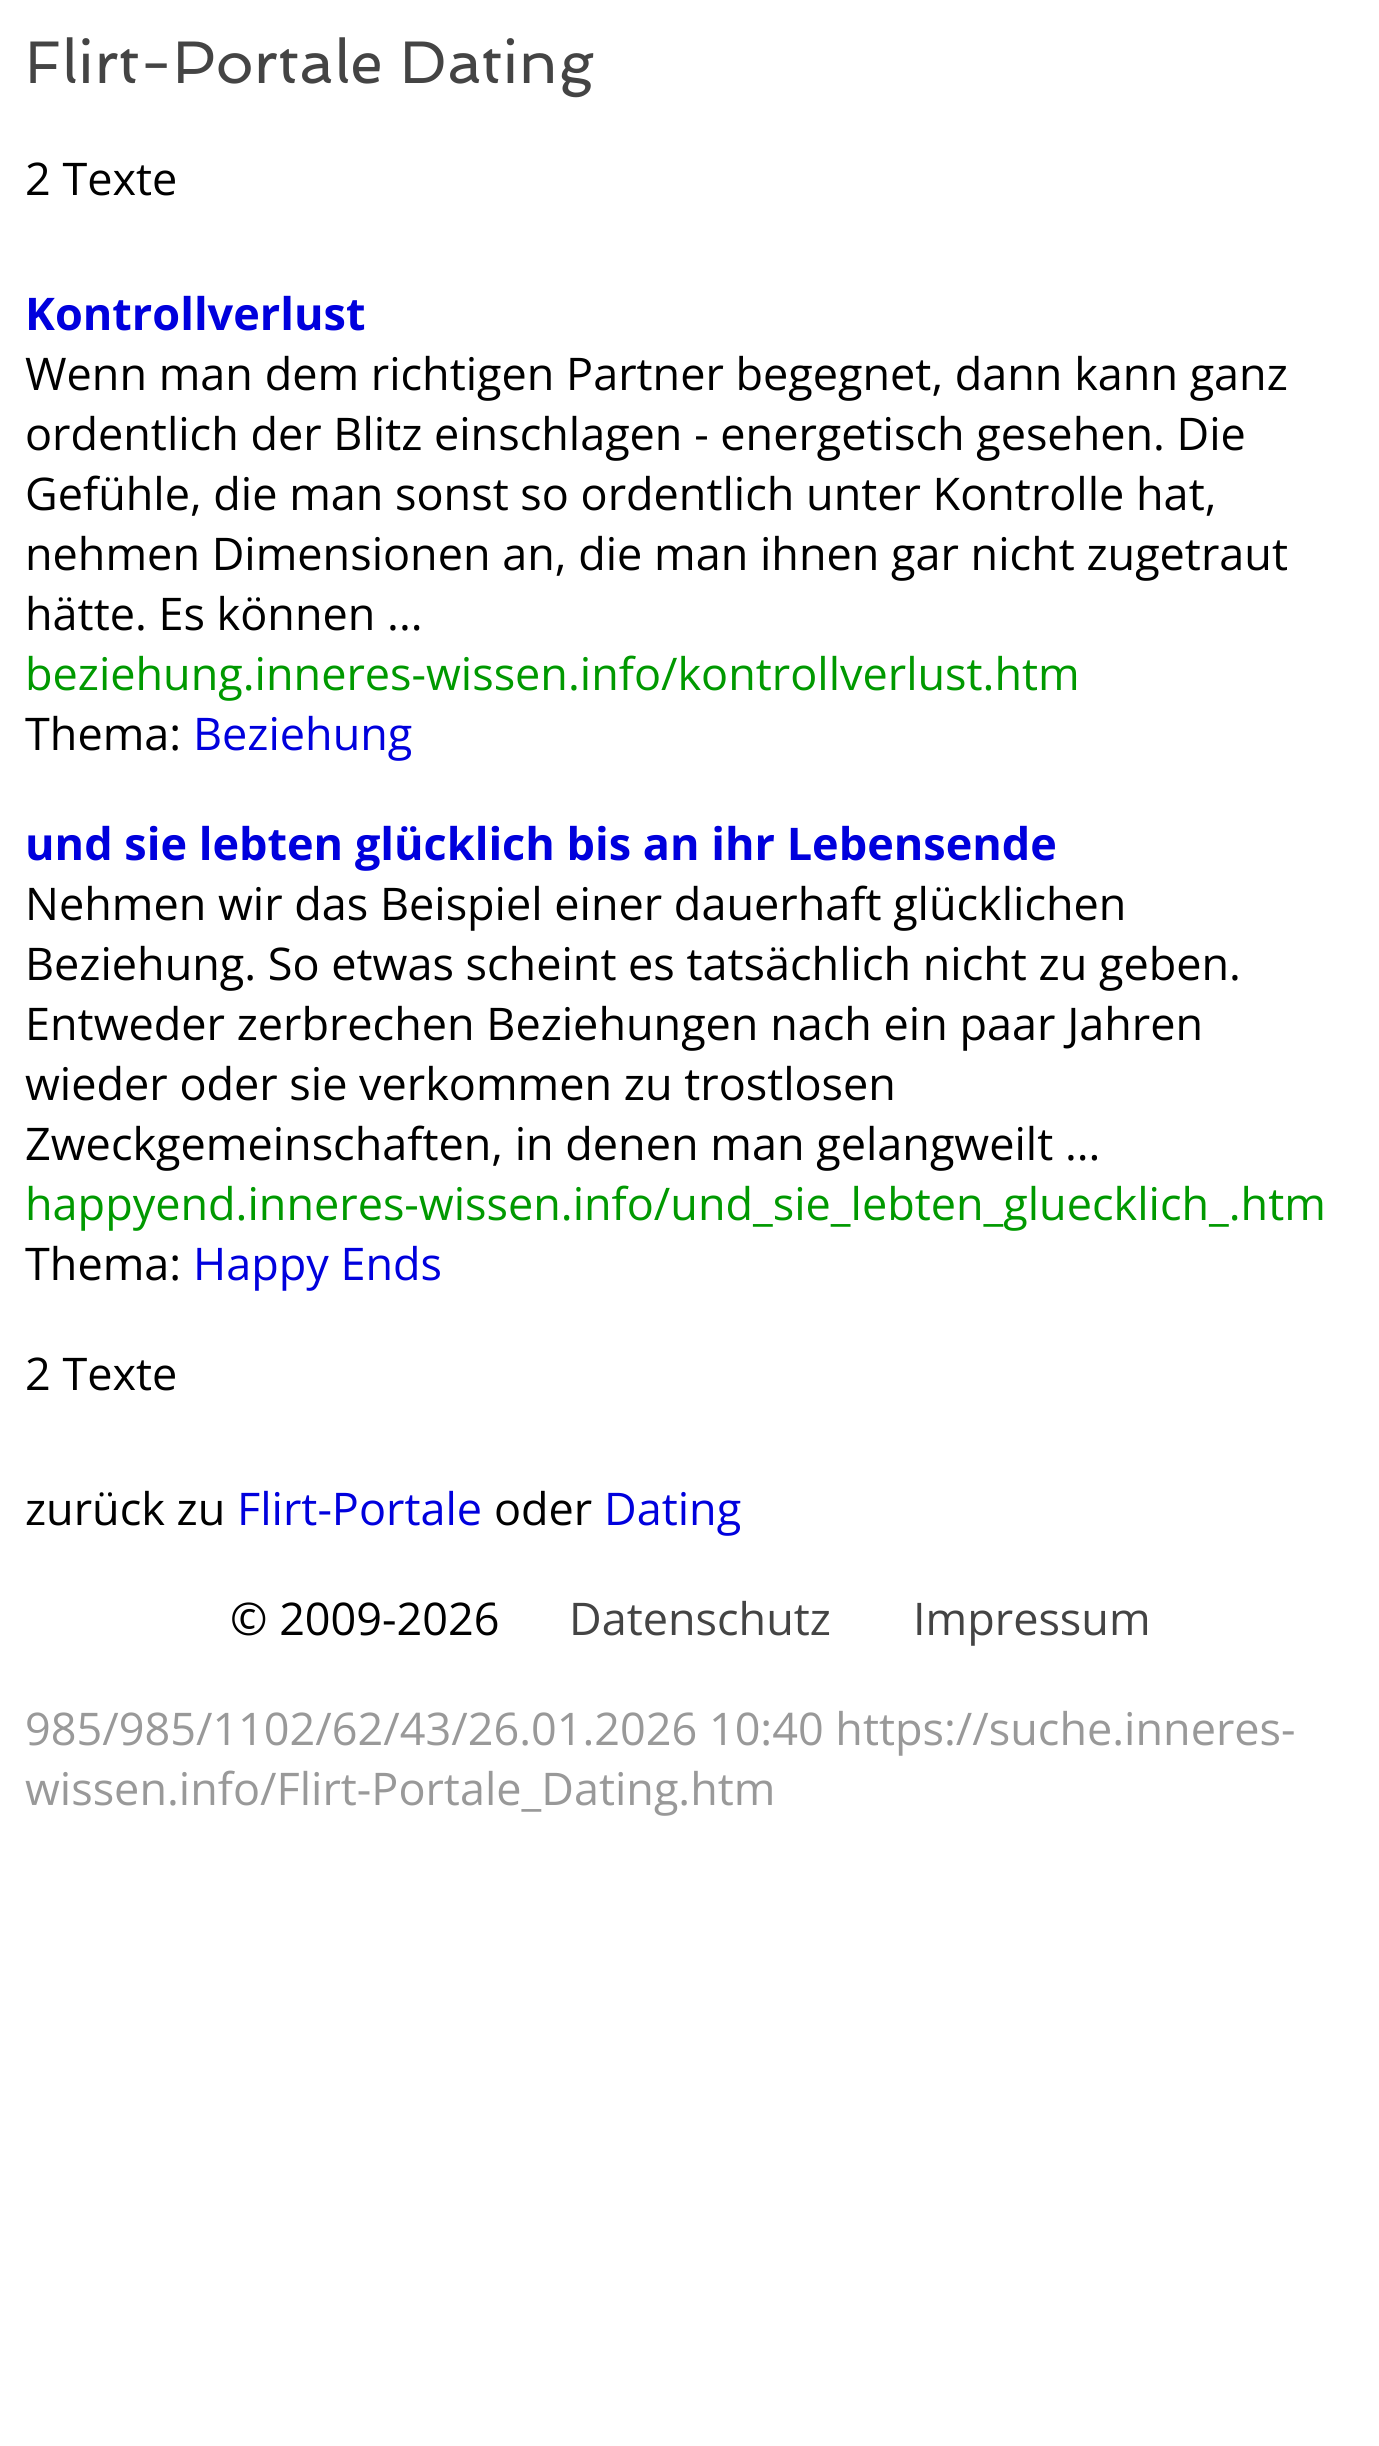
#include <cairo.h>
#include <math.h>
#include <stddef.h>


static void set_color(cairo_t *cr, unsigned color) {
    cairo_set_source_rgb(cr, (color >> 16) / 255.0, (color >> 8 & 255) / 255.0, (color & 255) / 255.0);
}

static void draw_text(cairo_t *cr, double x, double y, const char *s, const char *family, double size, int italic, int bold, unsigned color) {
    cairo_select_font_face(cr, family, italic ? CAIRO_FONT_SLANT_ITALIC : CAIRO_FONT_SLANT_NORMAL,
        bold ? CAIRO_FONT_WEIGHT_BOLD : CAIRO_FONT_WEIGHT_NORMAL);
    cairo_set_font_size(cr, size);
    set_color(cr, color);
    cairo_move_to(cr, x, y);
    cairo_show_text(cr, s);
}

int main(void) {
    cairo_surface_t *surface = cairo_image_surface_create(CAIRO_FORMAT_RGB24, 1379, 2446);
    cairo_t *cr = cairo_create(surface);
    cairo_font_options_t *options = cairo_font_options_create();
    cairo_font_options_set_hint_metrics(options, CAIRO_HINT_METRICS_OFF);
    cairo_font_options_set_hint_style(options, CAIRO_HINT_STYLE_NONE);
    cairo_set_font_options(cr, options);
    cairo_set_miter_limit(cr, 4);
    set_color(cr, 0xFFFFFF);
    cairo_paint(cr);
    draw_text(cr, 25, 83, "Flirt-Portale Dating", "Spinnaker", 60, 0, 0, 0x444444);
    draw_text(cr, 25, 195, "2 Texte", "Open Sans", 45, 0, 0, 0x000000);
    draw_text(cr, 25, 330, "Kontrollverlust", "Open Sans", 45, 0, 1, 0x0000DD);
    draw_text(cr, 25, 390, "Wenn man dem richtigen Partner begegnet, dann kann ganz", "Open Sans", 45, 0, 0, 0x000000);
    draw_text(cr, 25, 450, "ordentlich der Blitz einschlagen - energetisch gesehen. Die", "Open Sans", 45, 0, 0, 0x000000);
    draw_text(cr, 25, 510, "Gefühle, die man sonst so ordentlich unter Kontrolle hat,", "Open Sans", 45, 0, 0, 0x000000);
    draw_text(cr, 25, 570, "nehmen Dimensionen an, die man ihnen gar nicht zugetraut", "Open Sans", 45, 0, 0, 0x000000);
    draw_text(cr, 25, 630, "hätte. Es können ...", "Open Sans", 45, 0, 0, 0x000000);
    draw_text(cr, 25, 690, "beziehung.inneres-wissen.info/kontrollverlust.htm", "Open Sans", 45, 0, 0, 0x009900);
    draw_text(cr, 25, 750, "Thema:", "Open Sans", 45, 0, 0, 0x000000);
    draw_text(cr, 193, 750, "Beziehung", "Open Sans", 45, 0, 0, 0x0000DD);
    draw_text(cr, 25, 860, "und sie lebten glücklich bis an ihr Lebensende", "Open Sans", 45, 0, 1, 0x0000DD);
    draw_text(cr, 25, 920, "Nehmen wir das Beispiel einer dauerhaft glücklichen", "Open Sans", 45, 0, 0, 0x000000);
    draw_text(cr, 25, 980, "Beziehung. So etwas scheint es tatsächlich nicht zu geben.", "Open Sans", 45, 0, 0, 0x000000);
    draw_text(cr, 25, 1040, "Entweder zerbrechen Beziehungen nach ein paar Jahren", "Open Sans", 45, 0, 0, 0x000000);
    draw_text(cr, 25, 1100, "wieder oder sie verkommen zu trostlosen", "Open Sans", 45, 0, 0, 0x000000);
    draw_text(cr, 25, 1160, "Zweckgemeinschaften, in denen man gelangweilt ...", "Open Sans", 45, 0, 0, 0x000000);
    draw_text(cr, 25, 1220, "happyend.inneres-wissen.info/und_sie_lebten_gluecklich_.htm", "Open Sans", 45, 0, 0, 0x009900);
    draw_text(cr, 25, 1280, "Thema:", "Open Sans", 45, 0, 0, 0x000000);
    draw_text(cr, 193, 1280, "Happy Ends", "Open Sans", 45, 0, 0, 0x0000DD);
    draw_text(cr, 25, 1390, "2 Texte", "Open Sans", 45, 0, 0, 0x000000);
    draw_text(cr, 25, 1525, "zurück zu", "Open Sans", 45, 0, 0, 0x000000);
    draw_text(cr, 237, 1525, "Flirt-Portale", "Open Sans", 45, 0, 0, 0x0000DD);
    draw_text(cr, 494, 1525, "oder", "Open Sans", 45, 0, 0, 0x000000);
    draw_text(cr, 604, 1525, "Dating", "Open Sans", 45, 0, 0, 0x0000DD);
    draw_text(cr, 230, 1635, "© 2009-2026", "Open Sans", 45, 0, 0, 0x000000);
    draw_text(cr, 569, 1635, "Datenschutz", "Open Sans", 45, 0, 0, 0x444444);
    draw_text(cr, 913, 1635, "Impressum", "Open Sans", 45, 0, 0, 0x444444);
    draw_text(cr, 25, 1745, "985/985/1102/62/43/26.01.2026 10:40 https://suche.inneres-", "Open Sans", 45, 0, 0, 0x999999);
    draw_text(cr, 25, 1805, "wissen.info/Flirt-Portale_Dating.htm", "Open Sans", 45, 0, 0, 0x999999);
    cairo_surface_write_to_png(surface, "output.png");
    cairo_font_options_destroy(options);
    cairo_destroy(cr);
    cairo_surface_destroy(surface);
    return 0;
}
